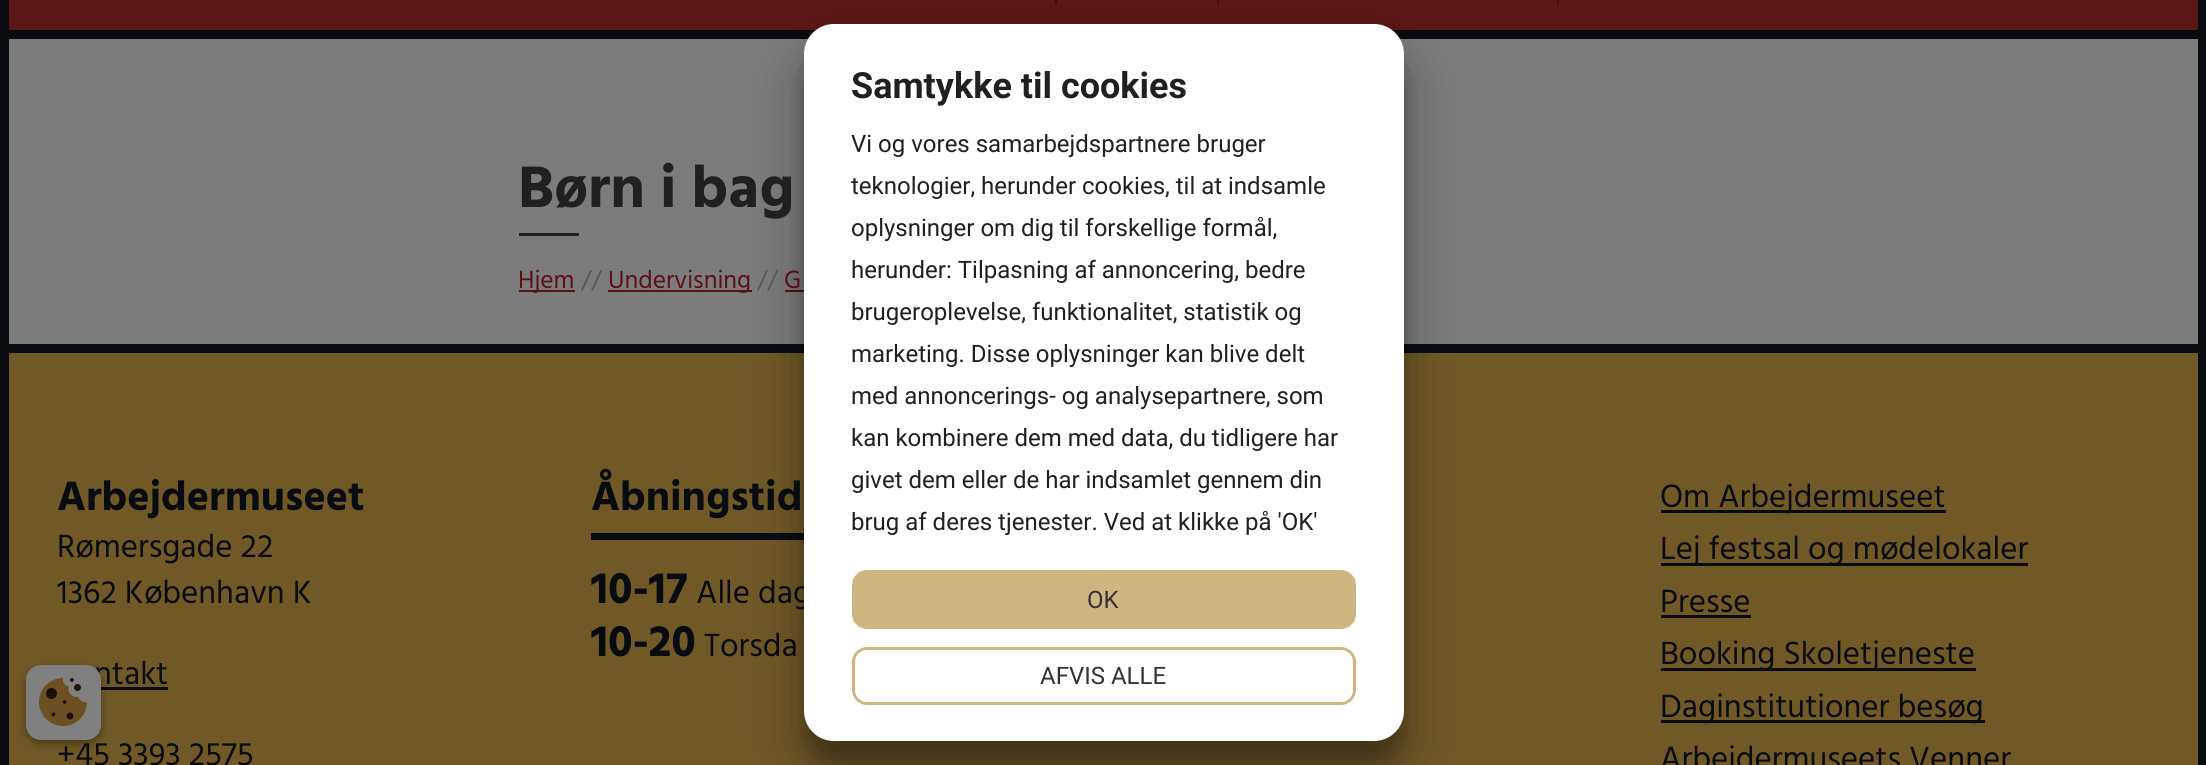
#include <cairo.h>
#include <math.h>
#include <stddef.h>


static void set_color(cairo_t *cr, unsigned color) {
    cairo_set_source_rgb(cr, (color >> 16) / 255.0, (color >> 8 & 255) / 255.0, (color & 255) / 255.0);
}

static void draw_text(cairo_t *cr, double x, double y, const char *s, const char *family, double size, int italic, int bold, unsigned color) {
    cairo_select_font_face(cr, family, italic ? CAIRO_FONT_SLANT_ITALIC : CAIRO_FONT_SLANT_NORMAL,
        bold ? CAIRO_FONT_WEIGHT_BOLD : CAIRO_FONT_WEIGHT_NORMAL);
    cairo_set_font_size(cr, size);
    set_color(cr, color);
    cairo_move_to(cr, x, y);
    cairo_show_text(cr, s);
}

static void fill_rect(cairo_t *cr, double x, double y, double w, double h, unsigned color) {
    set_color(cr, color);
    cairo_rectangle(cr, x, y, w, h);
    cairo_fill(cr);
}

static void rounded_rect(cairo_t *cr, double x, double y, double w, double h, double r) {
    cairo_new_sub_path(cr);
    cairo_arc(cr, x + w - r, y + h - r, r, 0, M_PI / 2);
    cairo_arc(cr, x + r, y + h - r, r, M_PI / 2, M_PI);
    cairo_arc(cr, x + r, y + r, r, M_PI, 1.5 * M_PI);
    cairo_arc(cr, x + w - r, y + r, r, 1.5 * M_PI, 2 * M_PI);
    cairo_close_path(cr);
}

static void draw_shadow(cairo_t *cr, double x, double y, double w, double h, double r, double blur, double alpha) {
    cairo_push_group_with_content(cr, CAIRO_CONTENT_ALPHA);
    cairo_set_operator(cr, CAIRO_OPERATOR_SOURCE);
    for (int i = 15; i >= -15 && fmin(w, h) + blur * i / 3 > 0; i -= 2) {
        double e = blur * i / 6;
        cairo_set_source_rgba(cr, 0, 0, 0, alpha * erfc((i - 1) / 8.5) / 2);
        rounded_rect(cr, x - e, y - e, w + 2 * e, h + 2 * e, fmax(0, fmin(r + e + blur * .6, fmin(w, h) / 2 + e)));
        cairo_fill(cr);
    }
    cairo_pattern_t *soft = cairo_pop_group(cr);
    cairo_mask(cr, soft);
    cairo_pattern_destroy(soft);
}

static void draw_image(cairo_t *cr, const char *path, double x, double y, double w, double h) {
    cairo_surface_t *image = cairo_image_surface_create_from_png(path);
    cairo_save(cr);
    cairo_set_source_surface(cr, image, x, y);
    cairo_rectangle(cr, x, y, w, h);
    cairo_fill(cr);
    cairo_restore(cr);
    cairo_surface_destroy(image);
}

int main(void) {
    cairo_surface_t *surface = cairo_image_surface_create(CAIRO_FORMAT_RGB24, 2206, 765);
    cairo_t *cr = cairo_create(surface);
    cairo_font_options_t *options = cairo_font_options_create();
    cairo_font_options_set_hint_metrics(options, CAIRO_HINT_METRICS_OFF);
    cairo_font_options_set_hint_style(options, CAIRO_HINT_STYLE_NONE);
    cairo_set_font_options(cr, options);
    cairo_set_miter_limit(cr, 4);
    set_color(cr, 0x7C7C7C);
    cairo_paint(cr);
    cairo_rectangle(cr, 4.5, -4.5, 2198, 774);
    set_color(cr, 0x080C10);
    cairo_set_line_width(cr, 9);
    cairo_stroke(cr);
    fill_rect(cr, 9, 0, 2189, 30, 0x5B1715);
    fill_rect(cr, 9, 30, 2189, 9, 0x080C10);
    fill_rect(cr, 785, 290, 19, 2, 0x591210);
    fill_rect(cr, 9, 353, 2189, 412, 0x705927);
    fill_rect(cr, 9, 344, 2189, 9, 0x080C10);
    fill_rect(cr, 591, 533, 213, 7, 0x080C10);
    set_color(cr, 0x000000);
    draw_shadow(cr, 804, 47, 600, 717, 30, 9, 0.22);
    fill_rect(cr, 1055, 0, 2, 5, 0x3A1313);
    fill_rect(cr, 1217, 0, 2, 5, 0x3A1313);
    fill_rect(cr, 608, 290, 144, 2, 0x591210);
    set_color(cr, 0x000000);
    draw_shadow(cr, 804, 53, 600, 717, 30, 28.5, 0.3);
    draw_text(cr, 696, 603, "Alle dag", "Hind", 33, 0, 0, 0x080C10);
    set_color(cr, 0xFFFFFF);
    rounded_rect(cr, 804, 24, 600, 717, 30);
    cairo_fill(cr);
    draw_text(cr, 851, 98, "Samtykke til cookies", "Roboto", 36, 0, 1, 0x202020);
    draw_text(cr, 851, 152, "Vi og vores samarbejdspartnere bruger", "Roboto", 24, 0, 0, 0x202020);
    draw_text(cr, 851, 194, "teknologier, herunder cookies, til at indsamle", "Roboto", 24, 0, 0, 0x202020);
    draw_text(cr, 851, 236, "oplysninger om dig til forskellige formål,", "Roboto", 24, 0, 0, 0x202020);
    draw_text(cr, 851, 278, "herunder: Tilpasning af annoncering, bedre", "Roboto", 24, 0, 0, 0x202020);
    draw_text(cr, 851, 320, "brugeroplevelse, funktionalitet, statistik og", "Roboto", 24, 0, 0, 0x202020);
    draw_text(cr, 851, 362, "marketing. Disse oplysninger kan blive delt", "Roboto", 24, 0, 0, 0x202020);
    draw_text(cr, 851, 404, "med annoncerings- og analysepartnere, som", "Roboto", 24, 0, 0, 0x202020);
    draw_text(cr, 851, 446, "kan kombinere dem med data, du tidligere har", "Roboto", 24, 0, 0, 0x202020);
    draw_text(cr, 851, 488, "givet dem eller de har indsamlet gennem din", "Roboto", 24, 0, 0, 0x202020);
    draw_text(cr, 851, 530, "brug af deres tjenester. Ved at klikke på 'OK'", "Roboto", 24, 0, 0, 0x202020);
    set_color(cr, 0xCEB582);
    rounded_rect(cr, 853.5, 571.5, 501, 56, 13.5);
    cairo_fill_preserve(cr);
    cairo_set_line_width(cr, 3);
    cairo_stroke(cr);
    draw_text(cr, 1087, 608, "OK", "Roboto", 24, 0, 0, 0x333333);
    rounded_rect(cr, 853.5, 648.5, 501, 55, 13.5);
    set_color(cr, 0xCEB582);
    cairo_stroke(cr);
    draw_text(cr, 1040, 684, "AFVIS ALLE", "Roboto", 24, 0, 0, 0x333333);
    fill_rect(cr, 1557, 0, 2, 5, 0x3A1313);
    draw_text(cr, 518, 207, "Børn i bag", "Hind", 60, 0, 1, 0x202020);
    fill_rect(cr, 519, 233, 60, 3, 0x202020);
    fill_rect(cr, 519, 290, 56, 2, 0x591210);
    draw_text(cr, 518, 288, "Hjem", "Hind", 25.5, 0, 0, 0x591210);
    draw_text(cr, 581, 288, "//", "Hind", 25.5, 0, 0, 0x585859);
    draw_text(cr, 608, 288, "Undervisning", "Hind", 25.5, 0, 0, 0x591210);
    draw_text(cr, 757, 288, "//", "Hind", 25.5, 0, 0, 0x585859);
    draw_text(cr, 784, 288, "G", "Hind", 25.5, 0, 0, 0x591210);
    draw_text(cr, 57, 510, "Arbejdermuseet", "Hind", 42, 0, 1, 0x080C10);
    draw_text(cr, 57, 557, "Rømersgade 22", "Hind", 33, 0, 0, 0x080C10);
    draw_text(cr, 57, 603, "1362 København K", "Hind", 33, 0, 0, 0x080C10);
    draw_text(cr, 94, 684, "ntakt", "Hind", 33, 0, 0, 0x080C10);
    fill_rect(cr, 101, 687, 67, 3, 0x080C10);
    draw_text(cr, 57, 765, "+45 3393 2575", "Hind", 33, 0, 0, 0x080C10);
    draw_text(cr, 591, 510, "Åbningstid", "Hind", 42, 0, 1, 0x080C10);
    draw_text(cr, 591, 603, "10-17", "Hind", 45, 0, 1, 0x080C10);
    draw_text(cr, 591, 656, "10-20", "Hind", 45, 0, 1, 0x080C10);
    draw_text(cr, 704, 656, "Torsda", "Hind", 33, 0, 0, 0x080C10);
    fill_rect(cr, 1661, 510, 285, 3, 0x080C10);
    draw_text(cr, 1660, 507, "Om Arbejdermuseet", "Hind", 33, 0, 0, 0x080C10);
    fill_rect(cr, 1661, 563, 367, 3, 0x080C10);
    draw_text(cr, 1660, 559, "Lej festsal og mødelokaler", "Hind", 33, 0, 0, 0x080C10);
    draw_text(cr, 1660, 612, "Presse", "Hind", 33, 0, 0, 0x080C10);
    fill_rect(cr, 1661, 615, 90, 3, 0x080C10);
    fill_rect(cr, 1661, 668, 315, 3, 0x080C10);
    draw_text(cr, 1660, 664, "Booking Skoletjeneste", "Hind", 33, 0, 0, 0x080C10);
    fill_rect(cr, 1661, 720, 324, 3, 0x080C10);
    draw_text(cr, 1660, 717, "Daginstitutioner besøg", "Hind", 33, 0, 0, 0x080C10);
    draw_text(cr, 1660, 769, "Arbejdermuseets Venner", "Hind", 33, 0, 0, 0x080C10);
    set_color(cr, 0x000000);
    draw_shadow(cr, 26, 669, 75, 75, 15, 4.5, 0.23);
    draw_shadow(cr, 26, 669, 75, 75, 15, 4.5, 0.16);
    set_color(cr, 0x808080);
    rounded_rect(cr, 26, 665, 75, 75, 15);
    cairo_fill(cr);
    draw_image(cr, "assets/img1.png", 39, 678, 48, 48);
    cairo_surface_write_to_png(surface, "output.png");
    cairo_font_options_destroy(options);
    cairo_destroy(cr);
    cairo_surface_destroy(surface);
    return 0;
}
